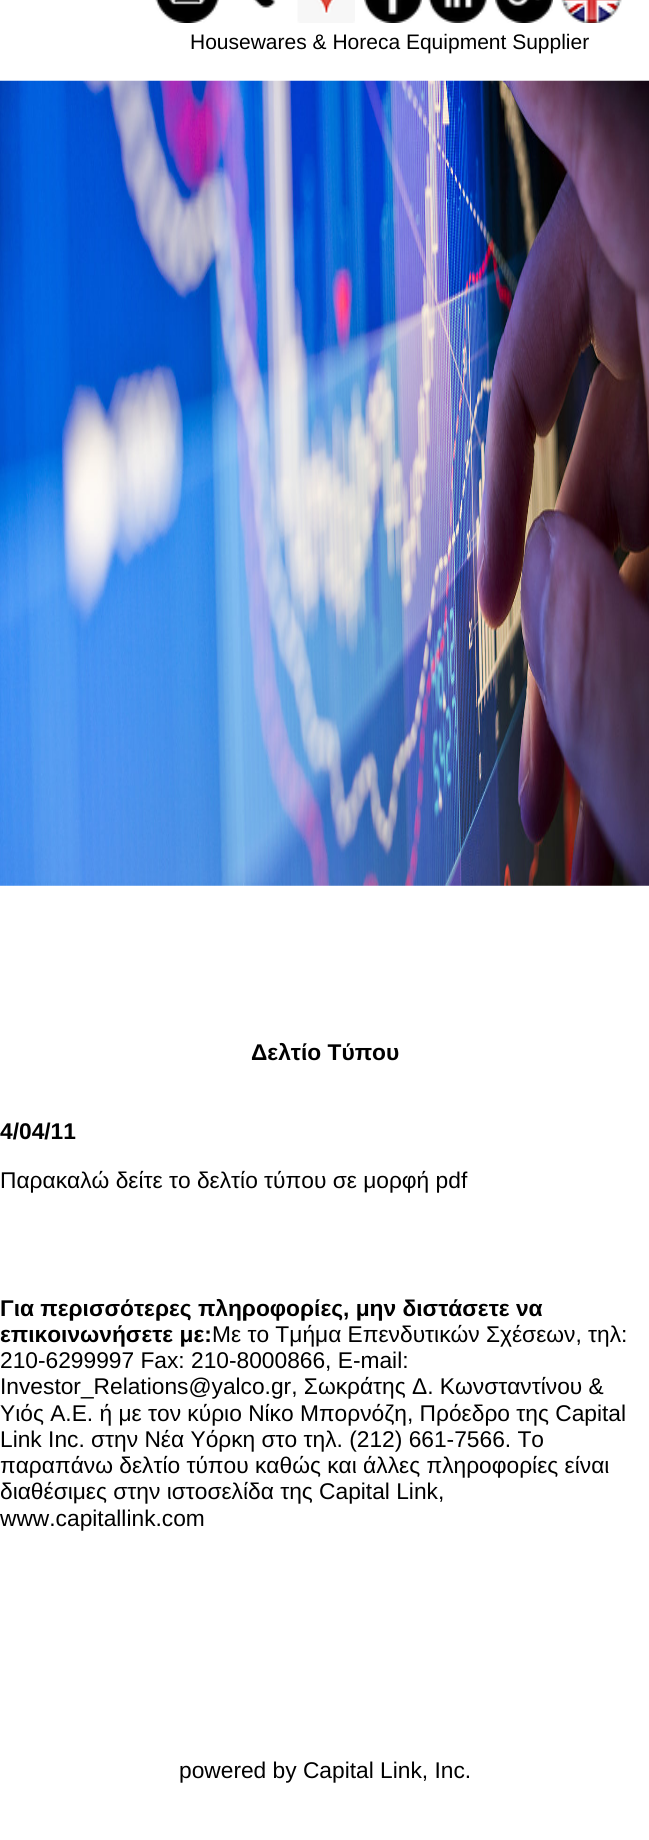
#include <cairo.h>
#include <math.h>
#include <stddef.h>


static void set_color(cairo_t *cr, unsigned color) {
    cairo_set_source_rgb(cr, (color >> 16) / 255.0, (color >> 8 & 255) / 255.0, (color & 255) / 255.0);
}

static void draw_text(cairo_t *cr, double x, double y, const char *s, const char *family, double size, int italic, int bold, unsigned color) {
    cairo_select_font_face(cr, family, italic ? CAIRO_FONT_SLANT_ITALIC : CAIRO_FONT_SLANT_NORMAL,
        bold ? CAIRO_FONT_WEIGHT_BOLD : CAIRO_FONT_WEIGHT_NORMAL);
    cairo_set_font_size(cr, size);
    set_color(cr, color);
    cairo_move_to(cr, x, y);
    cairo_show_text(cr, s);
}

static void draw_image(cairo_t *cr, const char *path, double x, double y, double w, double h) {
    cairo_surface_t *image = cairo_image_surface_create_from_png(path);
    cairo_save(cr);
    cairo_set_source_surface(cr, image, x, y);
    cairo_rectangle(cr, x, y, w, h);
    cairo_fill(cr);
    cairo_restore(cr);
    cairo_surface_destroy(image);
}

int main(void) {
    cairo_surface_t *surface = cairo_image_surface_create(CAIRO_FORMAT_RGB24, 649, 1840);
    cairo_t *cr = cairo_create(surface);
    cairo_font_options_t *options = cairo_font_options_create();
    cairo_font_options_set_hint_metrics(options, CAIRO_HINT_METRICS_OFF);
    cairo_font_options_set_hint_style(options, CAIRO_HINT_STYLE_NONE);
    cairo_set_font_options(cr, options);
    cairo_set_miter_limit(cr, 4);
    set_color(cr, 0xFFFFFF);
    cairo_paint(cr);
    draw_image(cr, "assets/img1.png", 155, 0, 64, 23);
    draw_image(cr, "assets/img2.png", 253, 0, 23, 8);
    draw_image(cr, "assets/img3.png", 297, 0, 58, 23);
    draw_image(cr, "assets/img4.png", 364, 0, 58, 23);
    draw_image(cr, "assets/img5.png", 428, 0, 59, 23);
    draw_image(cr, "assets/img6.png", 495, 0, 58, 23);
    draw_image(cr, "assets/img7.png", 561, 0, 61, 23);
    draw_text(cr, 190, 49, "Housewares & Horeca Equipment Supplier", "Liberation Sans", 21, 0, 0, 0x000000);
    draw_image(cr, "assets/img8.png", 0, 80, 649, 806);
    draw_text(cr, 251, 1060, "Δελτίο Τύπου", "Liberation Sans", 22.75, 0, 1, 0x000000);
    draw_text(cr, 0, 1139, "4/04/11", "Liberation Sans", 22.75, 0, 1, 0x000000);
    draw_text(cr, 0, 1188, "Παρακαλώ δείτε το δελτίο τύπου σε μορφή pdf", "Liberation Sans", 22.75, 0, 0, 0x000000);
    draw_text(cr, 0, 1316, "Για περισσότερες πληροφορίες, μην διστάσετε να", "Liberation Sans", 22.75, 0, 1, 0x000000);
    draw_text(cr, 0, 1342, "επικοινωνήσετε με:", "Liberation Sans", 22.75, 0, 1, 0x000000);
    draw_text(cr, 212, 1342, "Με το Τμήμα Επενδυτικών Σχέσεων, τηλ:", "Liberation Sans", 22.75, 0, 0, 0x000000);
    draw_text(cr, 0, 1368, "210-6299997 Fax: 210-8000866, E-mail:", "Liberation Sans", 22.75, 0, 0, 0x000000);
    draw_text(cr, 0, 1394, "Investor_Relations@yalco.gr, Σωκράτης Δ. Κωνσταντίνου &", "Liberation Sans", 22.75, 0, 0, 0x000000);
    draw_text(cr, 0, 1421, "Υιός Α.Ε. ή με τον κύριο Νίκο Μπορνόζη, Πρόεδρο της Capital", "Liberation Sans", 22.75, 0, 0, 0x000000);
    draw_text(cr, 0, 1447, "Link Inc. στην Νέα Υόρκη στο τηλ. (212) 661-7566. Το", "Liberation Sans", 22.75, 0, 0, 0x000000);
    draw_text(cr, 0, 1473, "παραπάνω δελτίο τύπου καθώς και άλλες πληροφορίες είναι", "Liberation Sans", 22.75, 0, 0, 0x000000);
    draw_text(cr, 0, 1499, "διαθέσιμες στην ιστοσελίδα της Capital Link,", "Liberation Sans", 22.75, 0, 0, 0x000000);
    draw_text(cr, 0, 1526, "www.capitallink.com", "Liberation Sans", 22.75, 0, 0, 0x000000);
    draw_text(cr, 179, 1778, "powered by Capital Link, Inc.", "Liberation Sans", 22.75, 0, 0, 0x000000);
    cairo_surface_write_to_png(surface, "output.png");
    cairo_font_options_destroy(options);
    cairo_destroy(cr);
    cairo_surface_destroy(surface);
    return 0;
}
